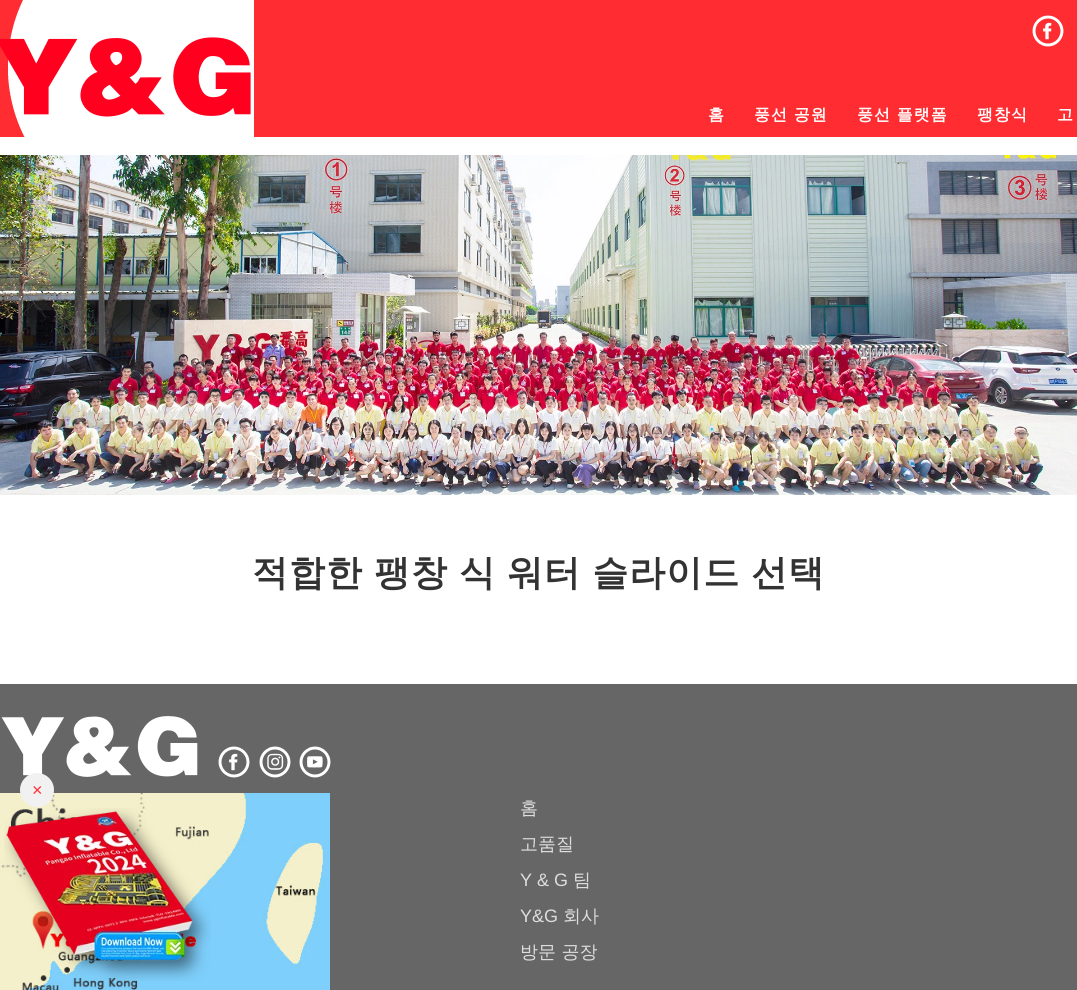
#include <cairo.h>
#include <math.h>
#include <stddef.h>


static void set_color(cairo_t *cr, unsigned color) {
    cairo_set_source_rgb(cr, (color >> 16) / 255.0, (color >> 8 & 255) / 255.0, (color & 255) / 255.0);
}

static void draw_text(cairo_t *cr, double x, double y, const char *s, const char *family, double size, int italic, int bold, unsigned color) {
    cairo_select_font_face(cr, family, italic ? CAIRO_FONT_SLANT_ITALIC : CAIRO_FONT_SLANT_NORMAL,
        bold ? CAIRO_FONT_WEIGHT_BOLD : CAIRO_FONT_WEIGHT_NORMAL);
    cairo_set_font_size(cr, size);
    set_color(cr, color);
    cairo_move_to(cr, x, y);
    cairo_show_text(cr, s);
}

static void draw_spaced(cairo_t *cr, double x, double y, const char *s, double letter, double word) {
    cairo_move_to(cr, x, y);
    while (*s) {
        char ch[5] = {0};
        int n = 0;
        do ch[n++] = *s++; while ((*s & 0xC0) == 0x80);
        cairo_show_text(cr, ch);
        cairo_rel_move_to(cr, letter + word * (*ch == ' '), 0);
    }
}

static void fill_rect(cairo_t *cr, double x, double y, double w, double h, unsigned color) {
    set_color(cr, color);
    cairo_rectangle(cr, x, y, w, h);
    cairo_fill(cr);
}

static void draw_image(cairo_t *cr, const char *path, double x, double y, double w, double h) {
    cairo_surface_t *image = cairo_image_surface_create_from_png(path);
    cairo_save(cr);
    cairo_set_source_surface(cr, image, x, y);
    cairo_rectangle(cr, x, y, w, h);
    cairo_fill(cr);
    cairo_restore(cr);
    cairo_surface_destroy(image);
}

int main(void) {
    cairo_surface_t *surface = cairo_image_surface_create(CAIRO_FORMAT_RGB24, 1077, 990);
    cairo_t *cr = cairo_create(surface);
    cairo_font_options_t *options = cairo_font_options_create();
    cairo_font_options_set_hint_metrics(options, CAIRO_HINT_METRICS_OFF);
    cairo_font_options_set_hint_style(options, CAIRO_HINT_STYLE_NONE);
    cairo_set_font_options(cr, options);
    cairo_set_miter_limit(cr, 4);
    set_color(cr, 0xFFFFFF);
    cairo_paint(cr);
    fill_rect(cr, 0, 0, 1077, 137, 0xFF2D31);
    draw_image(cr, "assets/img1.png", 8, 0, 246, 137);
    draw_image(cr, "assets/img2.png", 0, 37, 251, 80);
    draw_image(cr, "assets/img3.png", 1032, 15, 32, 32);
    cairo_select_font_face(cr, "WenQuanYi Zen Hei", CAIRO_FONT_SLANT_NORMAL, CAIRO_FONT_WEIGHT_BOLD);
    cairo_set_font_size(cr, 16);
    set_color(cr, 0xFFFFFF);
    draw_spaced(cr, 708, 120, "홈", 1, 0);
    draw_spaced(cr, 754, 120, "풍선 공원", 1, 0);
    draw_spaced(cr, 857, 120, "풍선 플랫폼", 1, 0);
    draw_spaced(cr, 977, 120, "팽창식", 1, 0);
    draw_spaced(cr, 1057, 120, "고", 1, 0);
    draw_image(cr, "assets/img4.png", 0, 155, 1077, 340);
    cairo_set_font_size(cr, 36);
    set_color(cr, 0x333333);
    draw_spaced(cr, 252, 585, "적합한 팽창 식 워터 슬라이드 선택", 1, -0.75);
    fill_rect(cr, 0, 684, 1077, 306, 0x666666);
    draw_image(cr, "assets/img6.png", 1, 716, 197, 61);
    draw_image(cr, "assets/img10.png", 0, 793, 330, 197);
    set_color(cr, 0xF1F1F1);
    cairo_arc(cr, 37, 790, 17, 0, 2 * M_PI);
    cairo_fill(cr);
    draw_text(cr, 32, 796, "×", "Liberation Sans", 18, 0, 0, 0xFF2D31);
    draw_image(cr, "assets/img5.png", 4, 808, 207, 173);
    draw_image(cr, "assets/img7.png", 218, 746, 32, 32);
    draw_image(cr, "assets/img8.png", 259, 746, 32, 32);
    draw_image(cr, "assets/img9.png", 299, 746, 32, 32);
    draw_text(cr, 520, 814, "홈", "WenQuanYi Zen Hei Medium", 18, 0, 0, 0xDDDDDD);
    draw_text(cr, 520, 850, "고품질", "WenQuanYi Zen Hei Medium", 18, 0, 0, 0xDDDDDD);
    draw_text(cr, 520, 886, "Y & G", "Liberation Sans", 18, 0, 0, 0xDDDDDD);
    draw_text(cr, 573, 886, "팀", "WenQuanYi Zen Hei Medium", 18, 0, 0, 0xDDDDDD);
    draw_text(cr, 520, 922, "Y&G", "Liberation Sans", 18, 0, 0, 0xDDDDDD);
    draw_text(cr, 563, 922, "회사", "WenQuanYi Zen Hei Medium", 18, 0, 0, 0xDDDDDD);
    draw_text(cr, 520, 958, "방문 공장", "WenQuanYi Zen Hei Medium", 18, 0, 0, 0xDDDDDD);
    cairo_surface_write_to_png(surface, "output.png");
    cairo_font_options_destroy(options);
    cairo_destroy(cr);
    cairo_surface_destroy(surface);
    return 0;
}
